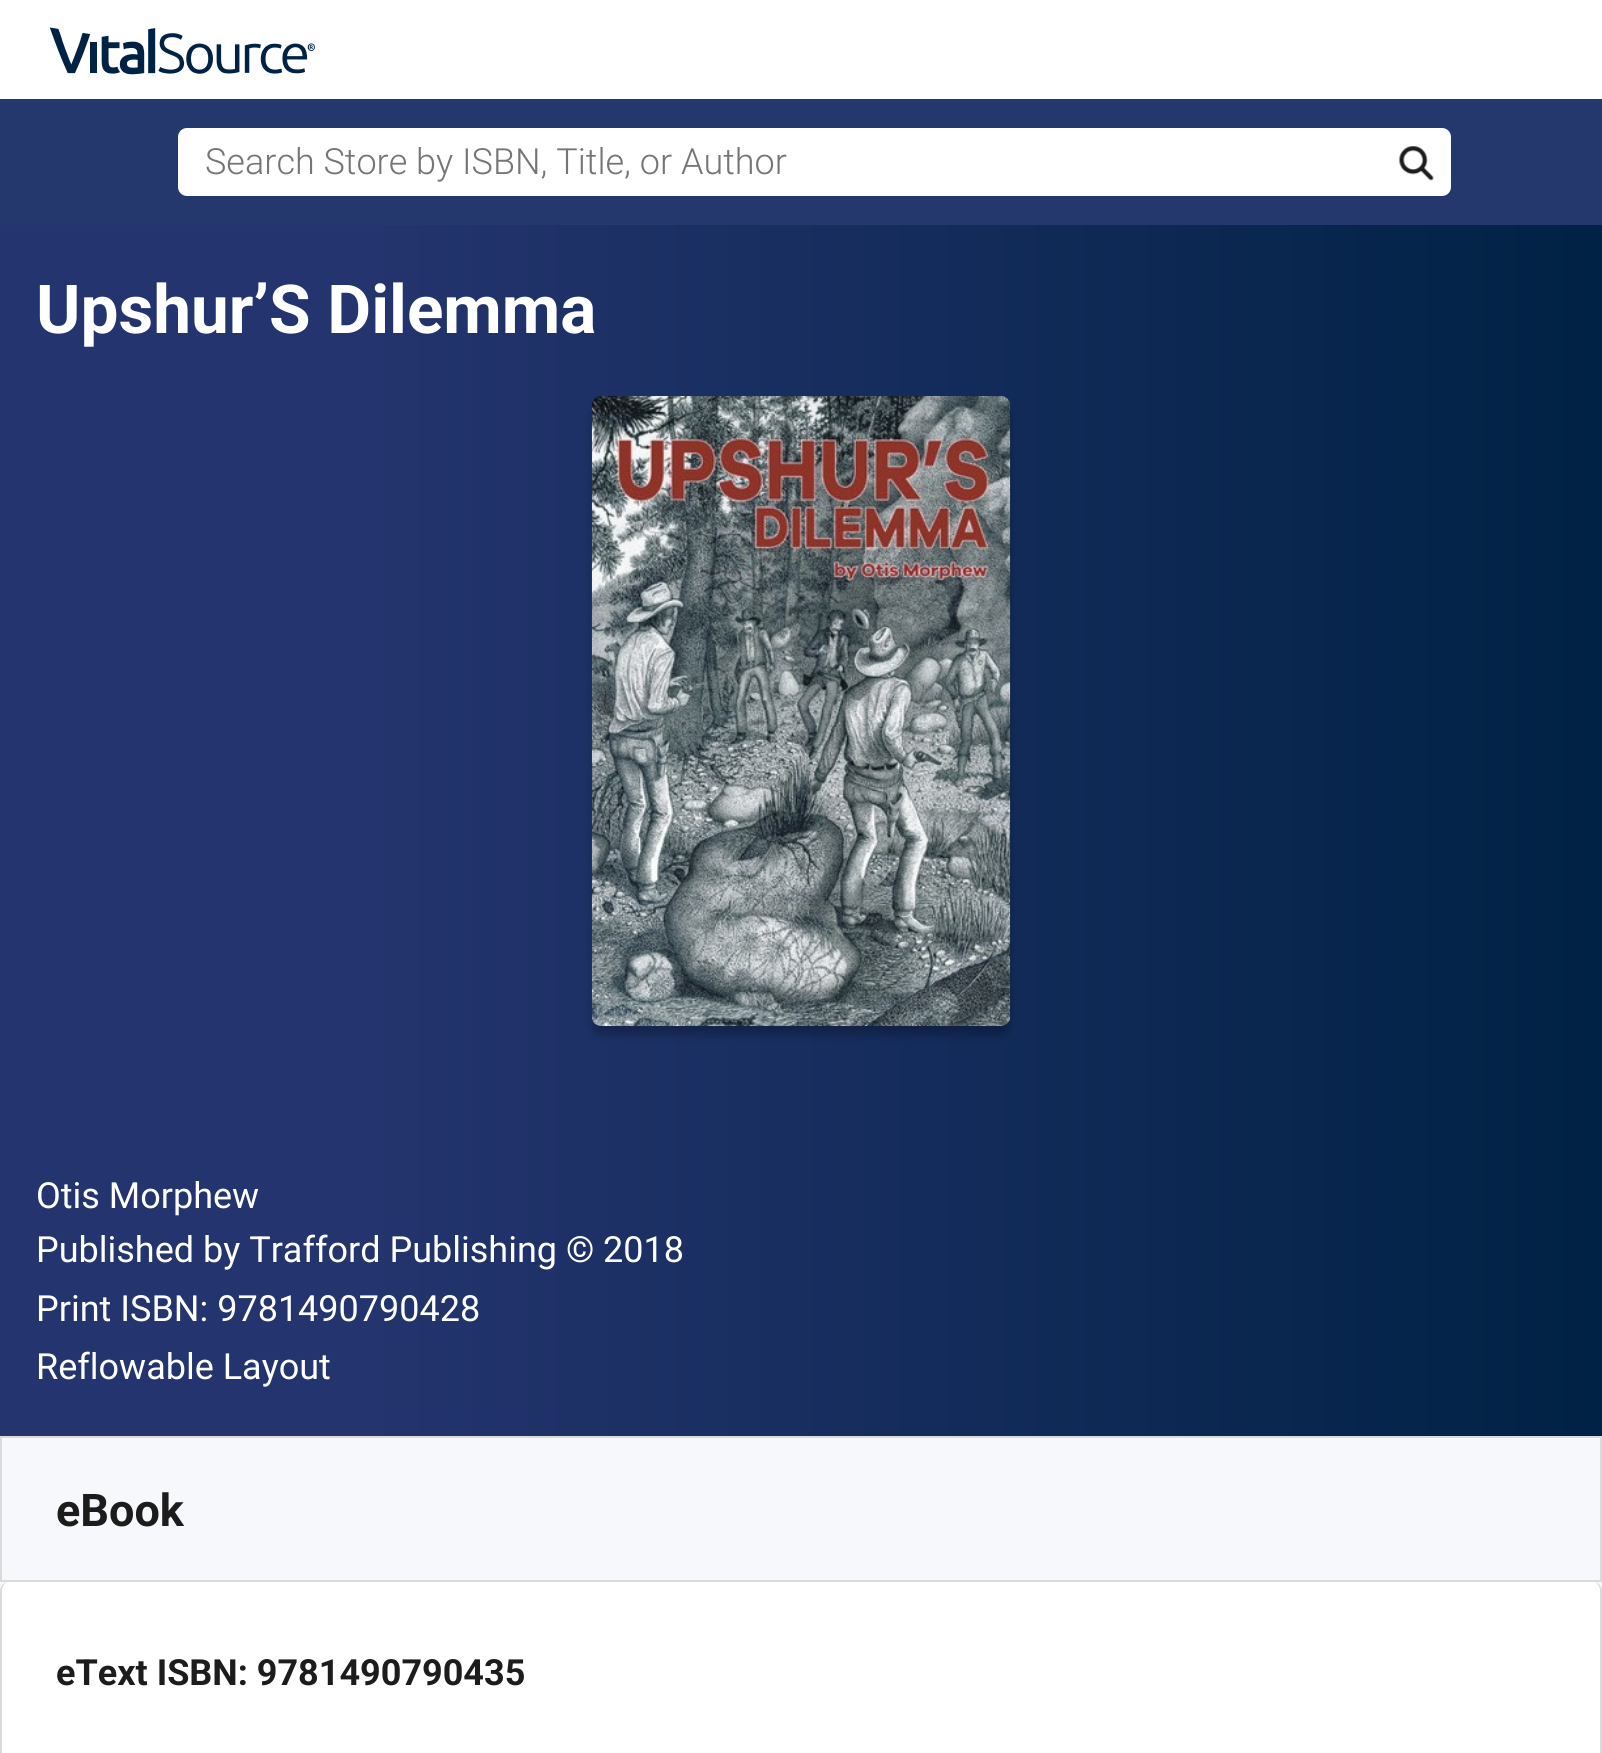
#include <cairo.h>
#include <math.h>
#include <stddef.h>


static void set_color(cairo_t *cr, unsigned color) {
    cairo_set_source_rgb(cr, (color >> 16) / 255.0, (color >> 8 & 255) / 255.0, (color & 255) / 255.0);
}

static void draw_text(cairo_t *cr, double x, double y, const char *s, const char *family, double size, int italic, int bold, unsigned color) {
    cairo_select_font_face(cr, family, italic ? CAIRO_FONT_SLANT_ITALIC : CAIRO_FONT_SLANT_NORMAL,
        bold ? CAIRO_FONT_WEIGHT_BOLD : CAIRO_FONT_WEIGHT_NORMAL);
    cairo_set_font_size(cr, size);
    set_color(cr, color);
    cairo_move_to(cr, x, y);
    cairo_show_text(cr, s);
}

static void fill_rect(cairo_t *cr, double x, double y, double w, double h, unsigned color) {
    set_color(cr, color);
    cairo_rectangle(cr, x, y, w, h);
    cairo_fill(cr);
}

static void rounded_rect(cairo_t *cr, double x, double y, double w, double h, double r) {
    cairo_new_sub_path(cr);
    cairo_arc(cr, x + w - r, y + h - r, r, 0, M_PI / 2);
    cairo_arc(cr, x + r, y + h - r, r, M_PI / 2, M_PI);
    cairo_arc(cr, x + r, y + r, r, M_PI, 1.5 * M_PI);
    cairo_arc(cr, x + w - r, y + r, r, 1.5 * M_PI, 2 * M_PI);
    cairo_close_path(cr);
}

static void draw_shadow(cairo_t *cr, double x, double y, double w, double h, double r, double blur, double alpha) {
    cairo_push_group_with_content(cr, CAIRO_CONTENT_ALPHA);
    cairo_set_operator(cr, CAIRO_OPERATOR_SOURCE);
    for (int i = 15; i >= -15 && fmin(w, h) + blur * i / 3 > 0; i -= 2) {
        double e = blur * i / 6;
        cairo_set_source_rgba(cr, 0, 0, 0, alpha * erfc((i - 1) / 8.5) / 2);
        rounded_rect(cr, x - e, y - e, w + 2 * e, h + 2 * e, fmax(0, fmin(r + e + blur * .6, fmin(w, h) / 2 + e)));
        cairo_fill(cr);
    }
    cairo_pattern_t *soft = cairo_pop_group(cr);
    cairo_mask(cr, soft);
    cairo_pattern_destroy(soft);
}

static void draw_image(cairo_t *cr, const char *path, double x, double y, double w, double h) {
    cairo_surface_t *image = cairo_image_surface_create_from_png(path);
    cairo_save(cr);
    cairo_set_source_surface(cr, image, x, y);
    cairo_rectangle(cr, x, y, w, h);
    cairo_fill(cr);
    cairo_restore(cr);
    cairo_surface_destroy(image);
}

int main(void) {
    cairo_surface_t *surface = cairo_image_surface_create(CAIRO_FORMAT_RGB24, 1602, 1753);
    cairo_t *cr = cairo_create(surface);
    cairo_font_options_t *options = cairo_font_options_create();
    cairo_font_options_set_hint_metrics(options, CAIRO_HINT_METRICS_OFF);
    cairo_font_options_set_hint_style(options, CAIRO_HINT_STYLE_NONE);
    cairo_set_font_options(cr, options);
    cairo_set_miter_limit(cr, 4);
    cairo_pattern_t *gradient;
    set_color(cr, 0xFFFFFF);
    cairo_paint(cr);
    draw_image(cr, "assets/img1.png", 49, 27, 266, 48);
    fill_rect(cr, 0, 99, 1602, 126, 0x24386E);
    set_color(cr, 0xFFFFFF);
    rounded_rect(cr, 178, 128, 1273, 68, 9);
    cairo_fill(cr);
    draw_text(cr, 205, 174, "Search Store by ISBN, Title, or Author", "Roboto Light", 36, 0, 0, 0x757575);
    draw_image(cr, "assets/img2.png", 1399, 146, 35, 35);
    fill_rect(cr, 0, 1438, 1602, 153, 0xF6F8FC);
    gradient = cairo_pattern_create_linear(1602, 808, 0, 808);
    cairo_pattern_add_color_stop_rgba(gradient, 0, 0, 0.133, 0.267, 1);
    cairo_pattern_add_color_stop_rgba(gradient, 0.77, 0.141, 0.204, 0.431, 1);
    cairo_set_source(cr, gradient);
    cairo_pattern_destroy(gradient);
    cairo_rectangle(cr, 0, 225, 1602, 1211);
    cairo_fill(cr);
    draw_text(cr, 36, 333, "Upshur’S Dilemma", "Roboto", 67.5, 0, 1, 0xFFFFFF);
    set_color(cr, 0x000000);
    draw_shadow(cr, 592, 405, 418, 630, 9, 4.5, 0.25);
    draw_image(cr, "assets/img3.png", 591, 396, 420, 630);
    draw_text(cr, 36, 1208, "Otis Morphew", "Roboto", 36, 0, 0, 0xFFFFFF);
    draw_text(cr, 36, 1262, "Published by Trafford Publishing © 2018", "Roboto", 36, 0, 0, 0xFFFFFF);
    draw_text(cr, 36, 1321, "Print ISBN: 9781490790428", "Roboto", 36, 0, 0, 0xFFFFFF);
    draw_text(cr, 36, 1379, "Reflowable Layout", "Roboto", 36, 0, 0, 0xFFFFFF);
    cairo_rectangle(cr, 1, 1437, 1600, 144);
    set_color(cr, 0xDADADA);
    cairo_stroke(cr);
    draw_text(cr, 56, 1526, "eBook", "Roboto", 45, 0, 1, 0x1C1C1C);
    set_color(cr, 0xFFFFFF);
    rounded_rect(cr, 0, 1582, 1602, 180, 9);
    cairo_fill(cr);
    set_color(cr, 0xDADADA);
    cairo_set_fill_rule(cr, CAIRO_FILL_RULE_EVEN_ODD);
    cairo_new_path(cr);
    cairo_move_to(cr, 9, 1582);
    cairo_line_to(cr, 1593, 1582);
    cairo_curve_to(cr, 1598, 1582, 1602, 1586, 1602, 1591);
    cairo_line_to(cr, 1602, 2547);
    cairo_curve_to(cr, 1602, 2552, 1598, 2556, 1593, 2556);
    cairo_line_to(cr, 9, 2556);
    cairo_curve_to(cr, 4, 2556, 0, 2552, 0, 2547);
    cairo_line_to(cr, 0, 1591);
    cairo_curve_to(cr, 0, 1586, 4, 1582, 9, 1582);
    cairo_close_path(cr);
    cairo_move_to(cr, 9, 1582);
    cairo_line_to(cr, 1593, 1582);
    cairo_curve_to(cr, 1597, 1582, 1600, 1586, 1600, 1591);
    cairo_line_to(cr, 1600, 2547);
    cairo_curve_to(cr, 1600, 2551, 1597, 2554, 1593, 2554);
    cairo_line_to(cr, 9, 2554);
    cairo_curve_to(cr, 5, 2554, 2, 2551, 2, 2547);
    cairo_line_to(cr, 2, 1591);
    cairo_curve_to(cr, 2, 1586, 5, 1582, 9, 1582);
    cairo_close_path(cr);
    cairo_fill(cr);
    draw_text(cr, 56, 1685, "eText ISBN: 9781490790435", "Roboto", 36, 0, 1, 0x1C1C1C);
    cairo_surface_write_to_png(surface, "output.png");
    cairo_font_options_destroy(options);
    cairo_destroy(cr);
    cairo_surface_destroy(surface);
    return 0;
}
